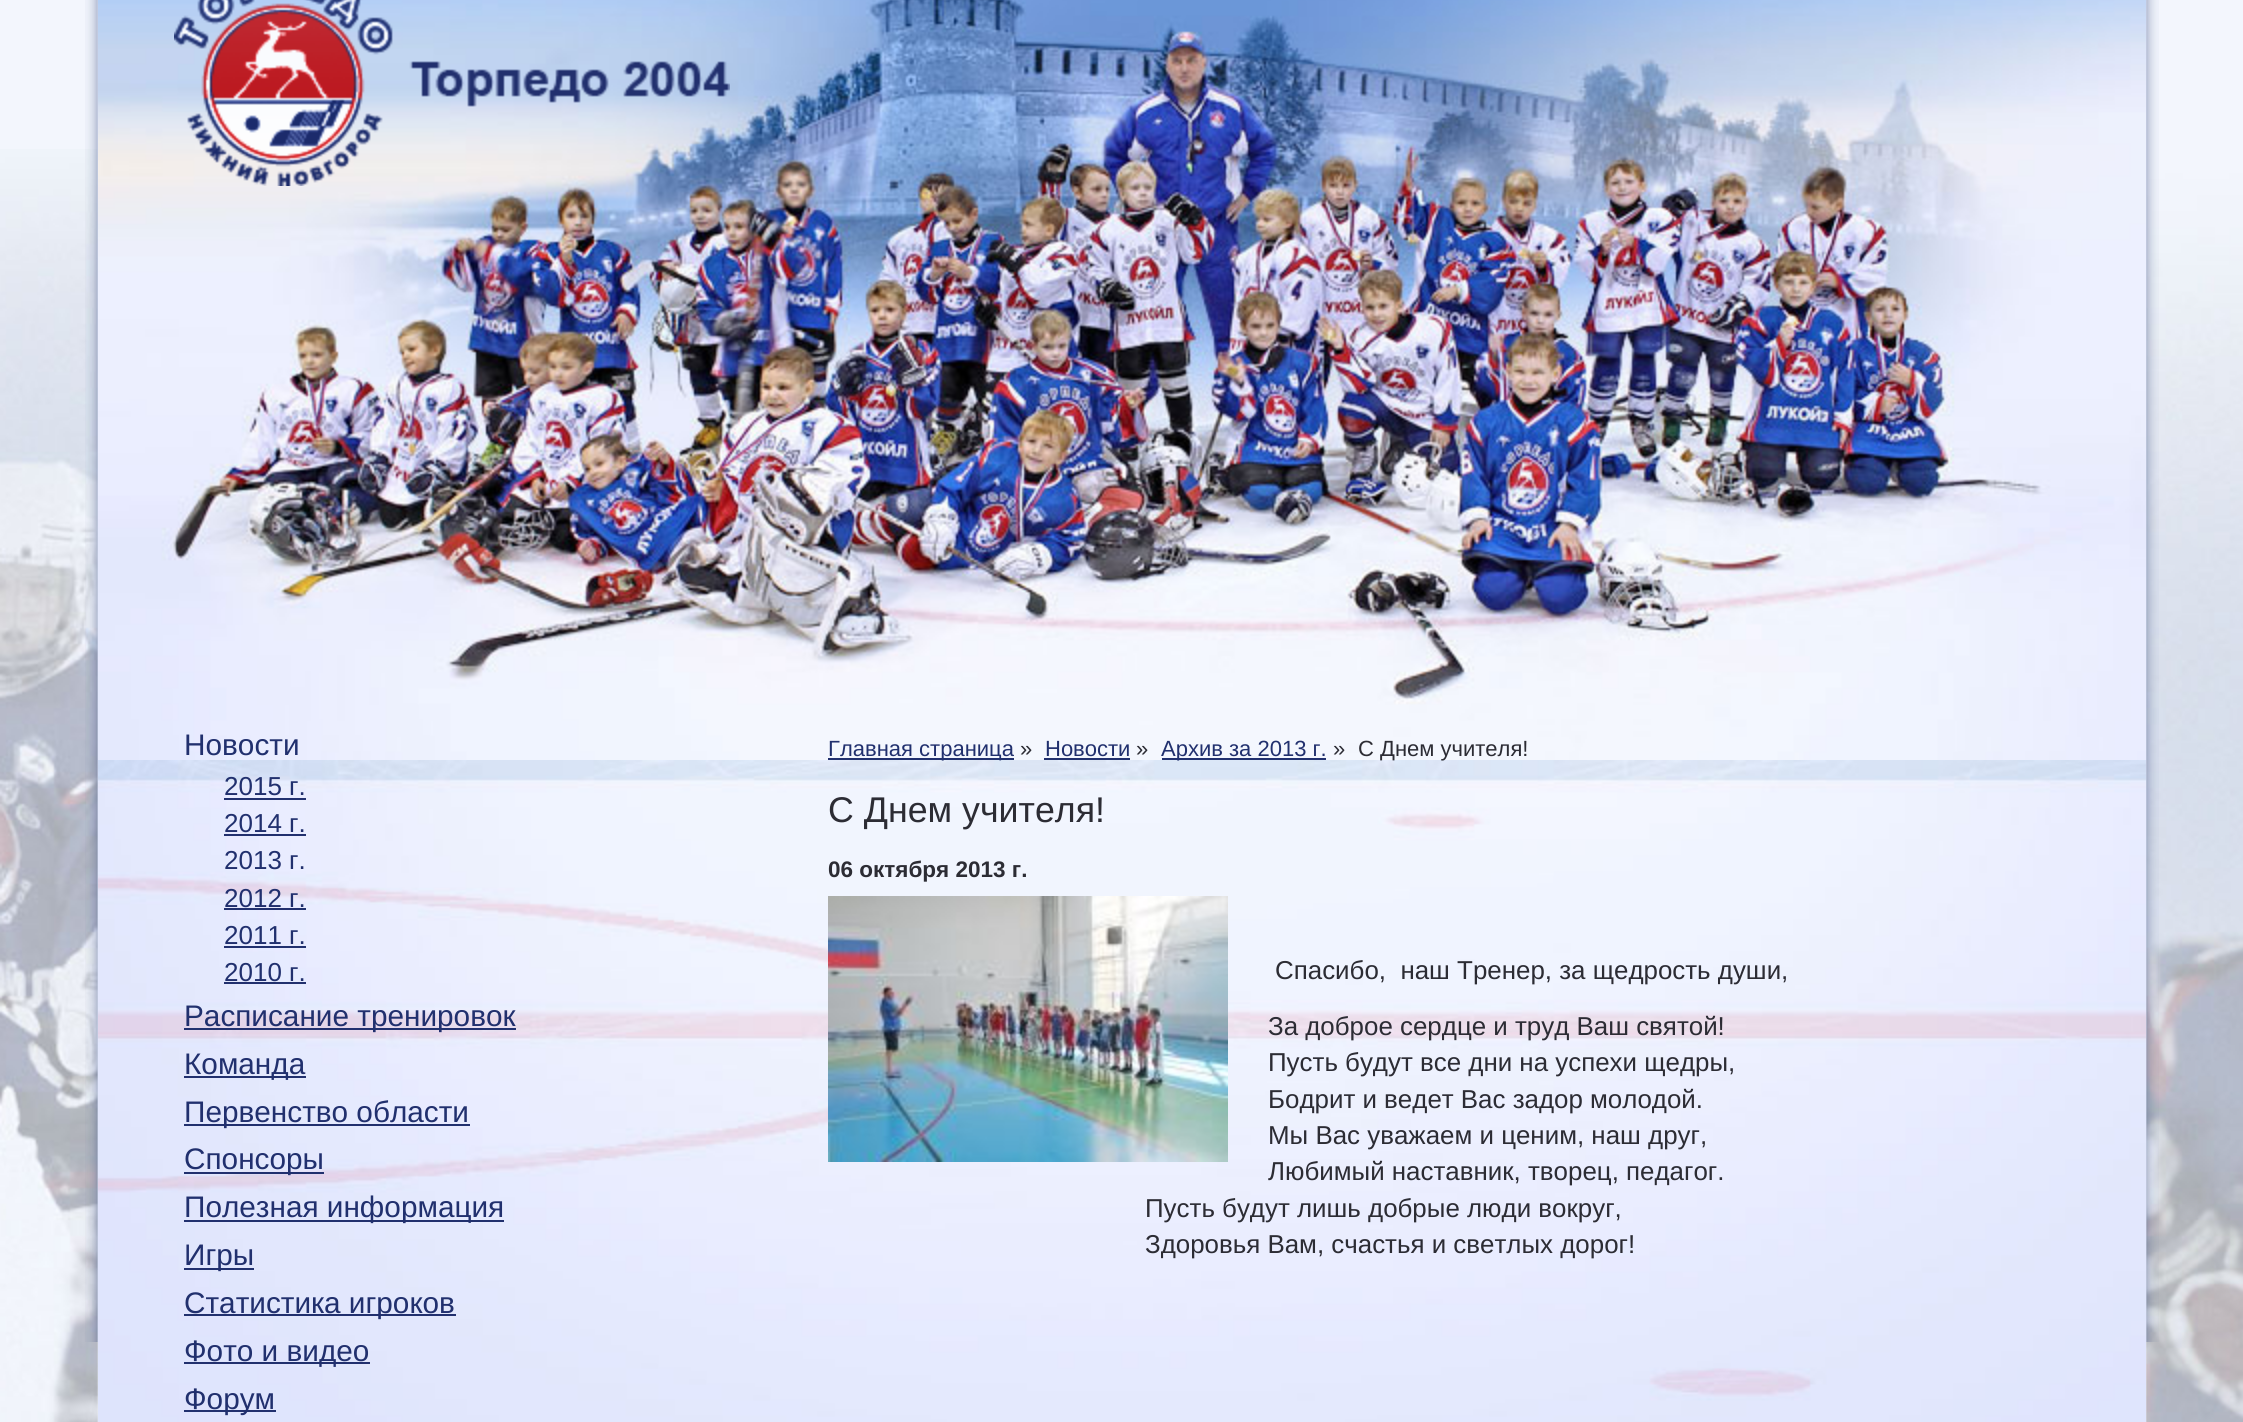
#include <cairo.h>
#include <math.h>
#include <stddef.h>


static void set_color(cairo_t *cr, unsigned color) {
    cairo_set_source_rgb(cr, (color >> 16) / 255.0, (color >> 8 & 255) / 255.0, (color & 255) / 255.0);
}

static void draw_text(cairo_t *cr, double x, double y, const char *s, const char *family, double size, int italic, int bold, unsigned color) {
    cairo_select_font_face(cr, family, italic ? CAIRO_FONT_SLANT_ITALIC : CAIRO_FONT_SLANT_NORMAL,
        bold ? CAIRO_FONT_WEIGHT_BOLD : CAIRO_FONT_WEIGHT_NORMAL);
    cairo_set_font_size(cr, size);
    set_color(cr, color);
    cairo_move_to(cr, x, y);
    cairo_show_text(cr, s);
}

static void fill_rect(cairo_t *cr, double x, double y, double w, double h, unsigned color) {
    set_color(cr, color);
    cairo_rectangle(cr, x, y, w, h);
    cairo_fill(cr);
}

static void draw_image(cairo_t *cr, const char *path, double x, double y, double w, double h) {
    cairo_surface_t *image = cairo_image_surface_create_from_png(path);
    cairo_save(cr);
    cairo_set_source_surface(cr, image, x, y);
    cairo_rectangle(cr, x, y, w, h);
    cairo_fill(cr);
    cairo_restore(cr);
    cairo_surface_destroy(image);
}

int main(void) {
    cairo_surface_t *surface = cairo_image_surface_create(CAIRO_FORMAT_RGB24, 2243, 1422);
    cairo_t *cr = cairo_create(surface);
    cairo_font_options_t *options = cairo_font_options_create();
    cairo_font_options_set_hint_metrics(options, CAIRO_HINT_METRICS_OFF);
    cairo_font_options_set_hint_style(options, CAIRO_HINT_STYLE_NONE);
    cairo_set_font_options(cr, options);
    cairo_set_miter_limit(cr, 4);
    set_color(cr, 0xF3F6FD);
    cairo_paint(cr);
    draw_image(cr, "assets/img1.png", 0, 149, 2243, 1273);
    draw_image(cr, "assets/img2.png", 85, 0, 2074, 1342);
    draw_image(cr, "assets/img3.png", 98, 760, 2048, 662);
    draw_image(cr, "assets/img5.png", 98, 0, 2048, 760);
    draw_image(cr, "assets/img4.png", 174, 0, 556, 186);
    draw_text(cr, 184, 755, "Новости", "Liberation Sans", 29.75, 0, 0, 0x21306E);
    draw_text(cr, 224, 795, "2015 г.", "Liberation Sans", 26, 0, 0, 0x21306E);
    fill_rect(cr, 224, 798, 82, 2, 0x21306E);
    draw_text(cr, 224, 832, "2014 г.", "Liberation Sans", 26, 0, 0, 0x21306E);
    fill_rect(cr, 224, 834, 82, 2, 0x21306E);
    draw_text(cr, 224, 869, "2013 г.", "Liberation Sans", 26, 0, 0, 0x21306E);
    draw_text(cr, 224, 907, "2012 г.", "Liberation Sans", 26, 0, 0, 0x21306E);
    fill_rect(cr, 224, 908, 82, 2, 0x21306E);
    draw_text(cr, 224, 944, "2011 г.", "Liberation Sans", 26, 0, 0, 0x21306E);
    fill_rect(cr, 224, 946, 82, 2, 0x21306E);
    draw_text(cr, 224, 981, "2010 г.", "Liberation Sans", 26, 0, 0, 0x21306E);
    fill_rect(cr, 224, 982, 82, 2, 0x21306E);
    fill_rect(cr, 184, 1028, 332, 2, 0x21306E);
    draw_text(cr, 184, 1026, "Расписание тренировок", "Liberation Sans", 29.75, 0, 0, 0x21306E);
    fill_rect(cr, 184, 1076, 122, 2, 0x21306E);
    draw_text(cr, 184, 1074, "Команда", "Liberation Sans", 29.75, 0, 0, 0x21306E);
    fill_rect(cr, 184, 1124, 286, 2, 0x21306E);
    draw_text(cr, 184, 1122, "Первенство области", "Liberation Sans", 29.75, 0, 0, 0x21306E);
    fill_rect(cr, 184, 1172, 140, 2, 0x21306E);
    draw_text(cr, 184, 1169, "Спонсоры", "Liberation Sans", 29.75, 0, 0, 0x21306E);
    fill_rect(cr, 184, 1220, 320, 2, 0x21306E);
    draw_text(cr, 184, 1217, "Полезная информация", "Liberation Sans", 29.75, 0, 0, 0x21306E);
    fill_rect(cr, 184, 1268, 70, 2, 0x21306E);
    draw_text(cr, 184, 1265, "Игры", "Liberation Sans", 29.75, 0, 0, 0x21306E);
    fill_rect(cr, 184, 1314, 272, 2, 0x21306E);
    draw_text(cr, 184, 1313, "Статистика игроков", "Liberation Sans", 29.75, 0, 0, 0x21306E);
    fill_rect(cr, 184, 1362, 186, 2, 0x21306E);
    draw_text(cr, 184, 1361, "Фото и видео", "Liberation Sans", 29.75, 0, 0, 0x21306E);
    fill_rect(cr, 184, 1410, 92, 2, 0x21306E);
    draw_text(cr, 184, 1409, "Форум", "Liberation Sans", 29.75, 0, 0, 0x21306E);
    fill_rect(cr, 828, 758, 186, 2, 0x21306E);
    draw_text(cr, 828, 756, "Главная страница", "Liberation Sans", 22, 0, 0, 0x21306E);
    draw_text(cr, 1020, 756, "»", "Liberation Sans", 22, 0, 0, 0x2C2C34);
    draw_text(cr, 1045, 756, "Новости", "Liberation Sans", 22, 0, 0, 0x21306E);
    fill_rect(cr, 1044, 758, 86, 2, 0x21306E);
    draw_text(cr, 1136, 756, "»", "Liberation Sans", 22, 0, 0, 0x2C2C34);
    fill_rect(cr, 1162, 758, 164, 2, 0x21306E);
    draw_text(cr, 1161, 756, "Архив за 2013 г.", "Liberation Sans", 22, 0, 0, 0x21306E);
    draw_text(cr, 1333, 756, "»", "Liberation Sans", 22, 0, 0, 0x2C2C34);
    draw_text(cr, 1358, 756, "С Днем учителя!", "Liberation Sans", 22, 0, 0, 0x2C2C34);
    draw_text(cr, 828, 822, "С Днем учителя!", "Liberation Sans", 35.75, 0, 0, 0x2C2C34);
    draw_text(cr, 828, 877, "06 октября 2013 г.", "Liberation Sans", 22.5, 0, 1, 0x2C2C34);
    draw_image(cr, "assets/img6.png", 828, 896, 400, 266);
    draw_text(cr, 1275, 979, "Спасибо,  наш Тренер, за щедрость души,", "Liberation Sans", 25.9, 0, 0, 0x2C2C34);
    draw_text(cr, 1268, 1035, "За доброе сердце и труд Ваш святой!", "Liberation Sans", 25.9, 0, 0, 0x2C2C34);
    draw_text(cr, 1268, 1071, "Пусть будут все дни на успехи щедры,", "Liberation Sans", 25.9, 0, 0, 0x2C2C34);
    draw_text(cr, 1268, 1108, "Бодрит и ведет Вас задор молодой.", "Liberation Sans", 25.9, 0, 0, 0x2C2C34);
    draw_text(cr, 1268, 1144, "Мы Вас уважаем и ценим, наш друг,", "Liberation Sans", 25.9, 0, 0, 0x2C2C34);
    draw_text(cr, 1268, 1180, "Любимый наставник, творец, педагог.", "Liberation Sans", 25.9, 0, 0, 0x2C2C34);
    draw_text(cr, 1145, 1217, "Пусть будут лишь добрые люди вокруг,", "Liberation Sans", 25.9, 0, 0, 0x2C2C34);
    draw_text(cr, 1145, 1253, "Здоровья Вам, счастья и светлых дорог!", "Liberation Sans", 25.9, 0, 0, 0x2C2C34);
    cairo_surface_write_to_png(surface, "output.png");
    cairo_font_options_destroy(options);
    cairo_destroy(cr);
    cairo_surface_destroy(surface);
    return 0;
}
